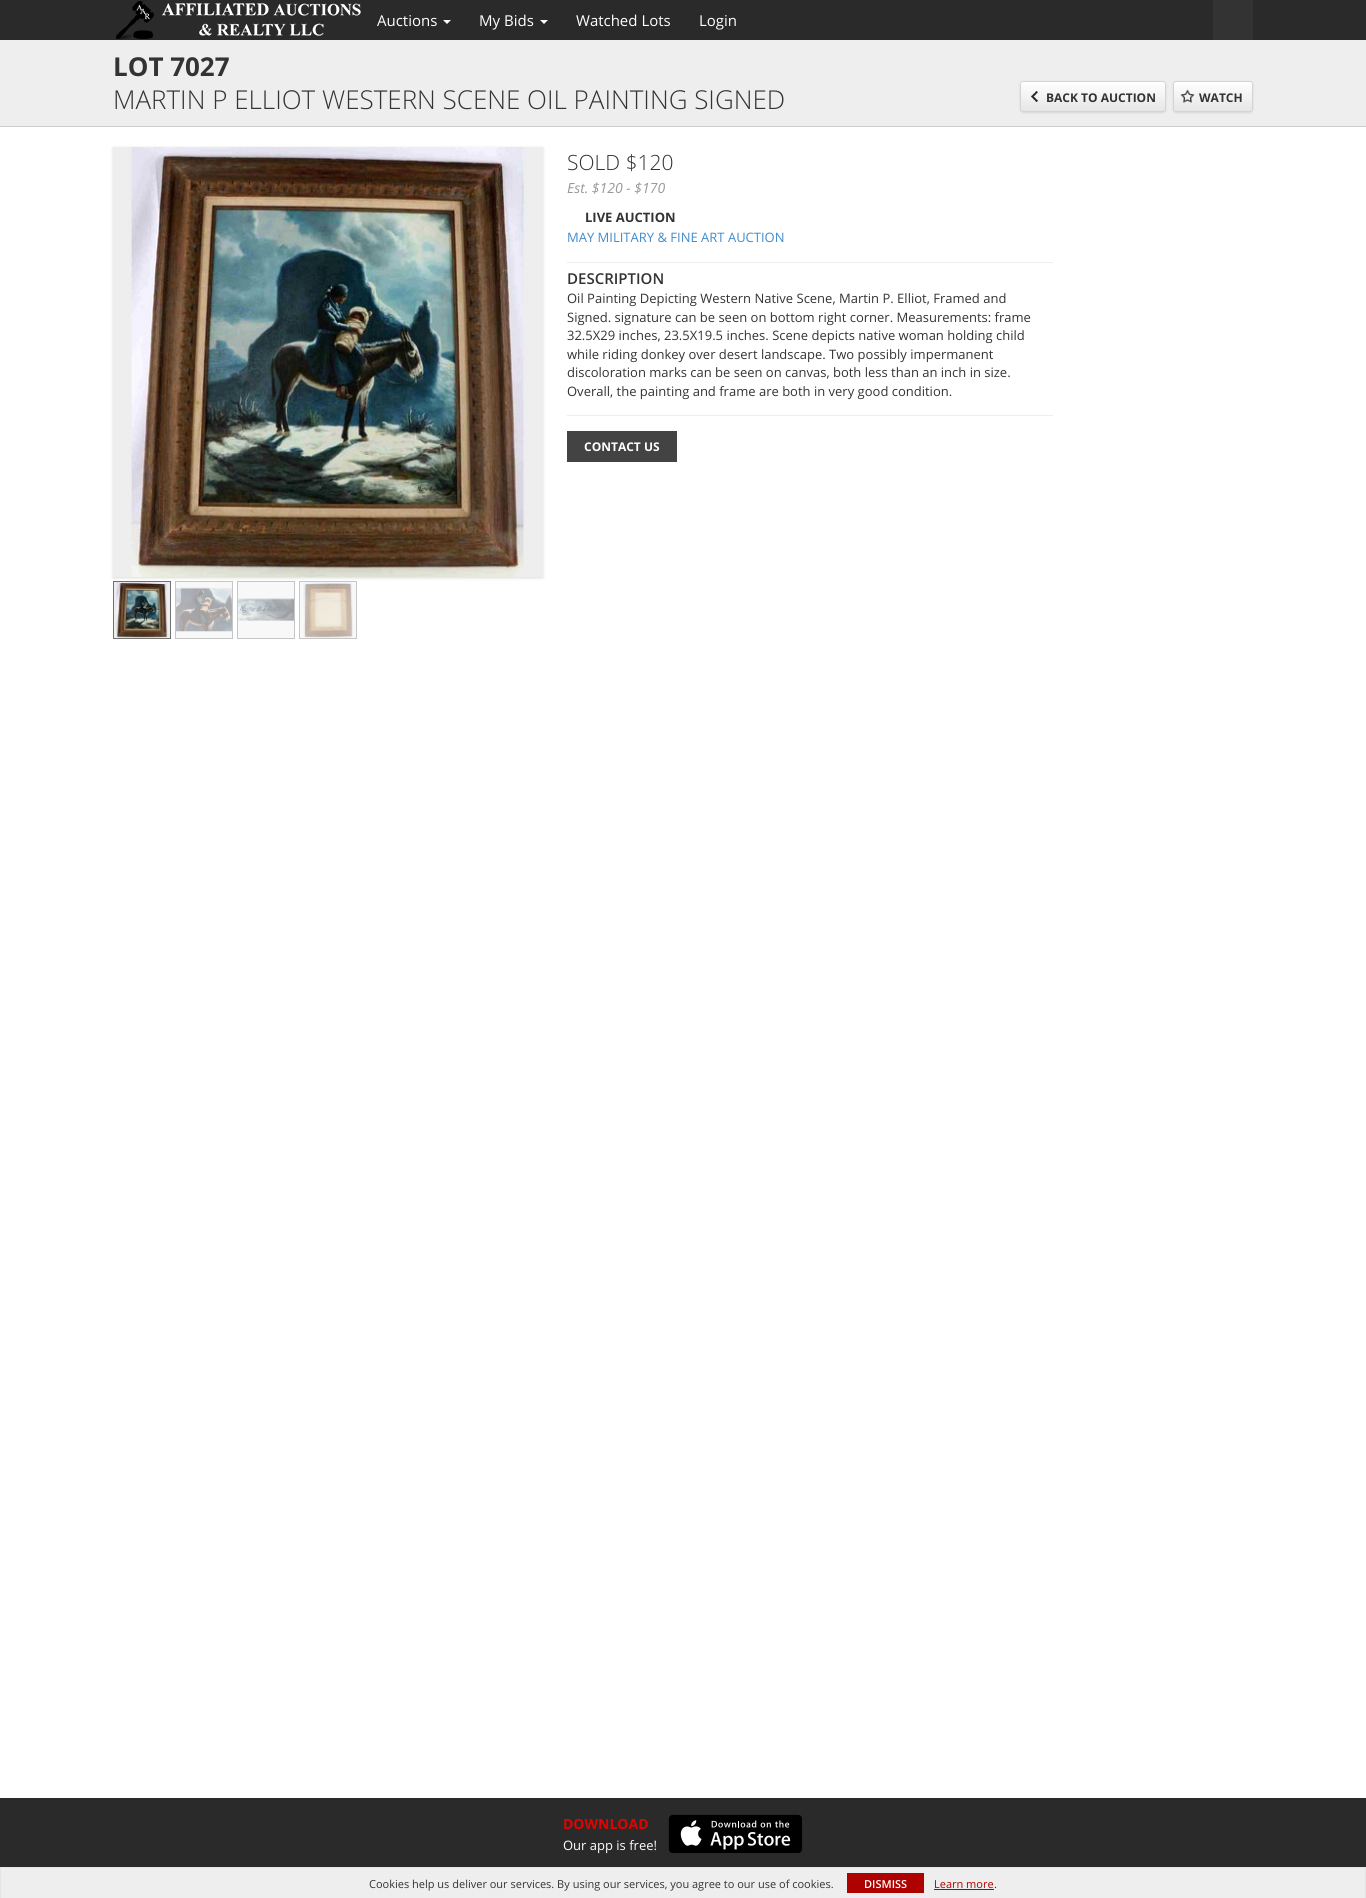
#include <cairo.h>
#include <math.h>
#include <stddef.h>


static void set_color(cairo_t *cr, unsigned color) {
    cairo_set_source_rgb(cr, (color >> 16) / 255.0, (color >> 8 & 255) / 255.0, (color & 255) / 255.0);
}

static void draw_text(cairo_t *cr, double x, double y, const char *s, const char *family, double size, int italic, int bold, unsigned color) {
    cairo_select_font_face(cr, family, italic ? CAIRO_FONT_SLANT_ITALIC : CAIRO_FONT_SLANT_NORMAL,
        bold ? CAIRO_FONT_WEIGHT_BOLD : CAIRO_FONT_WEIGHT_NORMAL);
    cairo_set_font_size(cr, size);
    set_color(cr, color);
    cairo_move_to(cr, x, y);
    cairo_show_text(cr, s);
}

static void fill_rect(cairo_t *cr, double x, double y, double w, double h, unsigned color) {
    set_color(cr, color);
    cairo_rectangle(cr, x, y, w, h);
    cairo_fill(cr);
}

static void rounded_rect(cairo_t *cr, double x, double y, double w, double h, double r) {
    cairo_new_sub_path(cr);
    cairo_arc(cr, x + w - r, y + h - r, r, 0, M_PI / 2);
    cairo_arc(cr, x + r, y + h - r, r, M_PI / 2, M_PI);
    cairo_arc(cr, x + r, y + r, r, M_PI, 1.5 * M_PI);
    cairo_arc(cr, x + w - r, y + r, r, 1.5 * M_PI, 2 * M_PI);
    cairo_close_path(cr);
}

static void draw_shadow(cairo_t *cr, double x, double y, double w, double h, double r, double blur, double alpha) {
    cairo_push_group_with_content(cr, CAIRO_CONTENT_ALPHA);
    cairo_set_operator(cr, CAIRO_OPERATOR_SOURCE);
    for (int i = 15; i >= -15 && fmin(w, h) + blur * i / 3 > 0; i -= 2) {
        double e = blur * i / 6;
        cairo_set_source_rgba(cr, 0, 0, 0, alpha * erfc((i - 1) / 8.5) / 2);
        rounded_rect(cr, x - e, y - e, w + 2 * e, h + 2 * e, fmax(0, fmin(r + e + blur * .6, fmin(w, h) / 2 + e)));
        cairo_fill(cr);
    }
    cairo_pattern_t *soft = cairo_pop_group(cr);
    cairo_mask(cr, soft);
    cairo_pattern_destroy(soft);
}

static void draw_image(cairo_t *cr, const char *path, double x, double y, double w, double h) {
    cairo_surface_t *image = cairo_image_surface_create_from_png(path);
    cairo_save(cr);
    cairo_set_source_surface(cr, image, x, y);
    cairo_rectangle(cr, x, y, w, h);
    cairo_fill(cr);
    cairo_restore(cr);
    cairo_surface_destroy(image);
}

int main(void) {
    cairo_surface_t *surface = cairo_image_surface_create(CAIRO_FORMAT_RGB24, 1366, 1898);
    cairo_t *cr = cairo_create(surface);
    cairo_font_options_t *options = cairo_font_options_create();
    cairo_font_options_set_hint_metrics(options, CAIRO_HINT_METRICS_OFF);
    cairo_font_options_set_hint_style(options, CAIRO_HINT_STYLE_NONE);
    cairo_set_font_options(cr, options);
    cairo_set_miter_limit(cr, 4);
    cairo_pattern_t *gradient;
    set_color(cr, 0xFFFFFF);
    cairo_paint(cr);
    fill_rect(cr, 0, 0, 1366, 40, 0x2A2A2A);
    draw_image(cr, "assets/img1.png", 116, 1, 245, 38);
    draw_text(cr, 377, 26, "Auctions", "Open Sans", 15, 0, 0, 0xFFFFFF);
    cairo_new_path(cr);
    cairo_move_to(cr, 443, 20);
    cairo_line_to(cr, 451, 20);
    cairo_line_to(cr, 447, 24);
    cairo_close_path(cr);
    cairo_fill(cr);
    draw_text(cr, 479, 26, "My Bids", "Open Sans", 15, 0, 0, 0xFFFFFF);
    cairo_new_path(cr);
    cairo_move_to(cr, 540, 20);
    cairo_line_to(cr, 548, 20);
    cairo_line_to(cr, 544, 24);
    cairo_close_path(cr);
    cairo_fill(cr);
    draw_text(cr, 576, 26, "Watched Lots", "Open Sans", 15, 0, 0, 0xFFFFFF);
    draw_text(cr, 699, 26, "Login", "Open Sans", 15, 0, 0, 0xFFFFFF);
    fill_rect(cr, 1213, 0, 40, 40, 0x333333);
    fill_rect(cr, 0, 40, 1366, 86, 0xEEEEEE);
    fill_rect(cr, 0, 126, 1366, 1, 0xCCCCCC);
    draw_text(cr, 113, 76, "LOT 7027", "Open Sans", 26, 0, 1, 0x333333);
    draw_text(cr, 113, 109, "MARTIN P ELLIOT WESTERN SCENE OIL PAINTING SIGNED", "Open Sans Light", 26, 0, 0, 0x333333);
    set_color(cr, 0x000000);
    draw_shadow(cr, 1021, 83, 144, 29, 2, 1.5, 0.2);
    cairo_save(cr);
    rounded_rect(cr, 1020, 81, 146, 31, 3);
    cairo_clip(cr);
    gradient = cairo_pattern_create_linear(1093, 82, 1093, 111);
    cairo_pattern_add_color_stop_rgba(gradient, 0, 1, 1, 1, 1);
    cairo_pattern_add_color_stop_rgba(gradient, 1, 0.902, 0.902, 0.902, 1);
    cairo_set_source(cr, gradient);
    cairo_pattern_destroy(gradient);
    cairo_rectangle(cr, 1020, 82, 146, 29);
    cairo_fill(cr);
    cairo_restore(cr);
    rounded_rect(cr, 1020.5, 81.5, 145, 30, 2.5);
    set_color(cr, 0xD4D4D4);
    cairo_set_line_width(cr, 1);
    cairo_stroke(cr);
    draw_image(cr, "assets/img2.png", 1031, 91, 7, 11);
    draw_text(cr, 1046, 102, "BACK TO AUCTION", "Open Sans", 12, 0, 1, 0x333333);
    set_color(cr, 0x000000);
    draw_shadow(cr, 1174, 83, 78, 29, 2, 1.5, 0.2);
    cairo_save(cr);
    rounded_rect(cr, 1173, 81, 80, 31, 3);
    cairo_clip(cr);
    gradient = cairo_pattern_create_linear(1213, 82, 1213, 111);
    cairo_pattern_add_color_stop_rgba(gradient, 0, 1, 1, 1, 1);
    cairo_pattern_add_color_stop_rgba(gradient, 1, 0.902, 0.902, 0.902, 1);
    cairo_set_source(cr, gradient);
    cairo_pattern_destroy(gradient);
    cairo_rectangle(cr, 1173, 82, 80, 29);
    cairo_fill(cr);
    cairo_restore(cr);
    cairo_set_source_rgba(cr, 1, 1, 1, 0.4);
    cairo_new_path(cr);
    cairo_move_to(cr, 1176, 83);
    cairo_line_to(cr, 1250, 83);
    cairo_curve_to(cr, 1251, 83, 1252, 84, 1252, 85);
    cairo_curve_to(cr, 1252, 79, 1241, 82, 1238, 82);
    cairo_line_to(cr, 1188, 82);
    cairo_curve_to(cr, 1185, 82, 1174, 79, 1174, 85);
    cairo_curve_to(cr, 1174, 84, 1175, 83, 1176, 83);
    cairo_close_path(cr);
    cairo_fill(cr);
    rounded_rect(cr, 1173.5, 81.5, 79, 30, 2.5);
    set_color(cr, 0xD4D4D4);
    cairo_stroke(cr);
    draw_image(cr, "assets/img3.png", 1180, 89, 15, 14);
    draw_text(cr, 1199, 102, "WATCH", "Open Sans", 12, 0, 1, 0x333333);
    set_color(cr, 0xDAD9D7);
    draw_shadow(cr, 113, 148, 430, 430, 0, 1.5, 1);
    draw_image(cr, "assets/img4.png", 113, 147, 430, 430);
    cairo_rectangle(cr, 113.5, 581.5, 57, 57);
    set_color(cr, 0x717171);
    cairo_stroke(cr);
    cairo_rectangle(cr, 175.5, 581.5, 57, 57);
    set_color(cr, 0xC6C6C6);
    cairo_stroke(cr);
    cairo_rectangle(cr, 237.5, 581.5, 57, 57);
    cairo_stroke(cr);
    cairo_rectangle(cr, 299.5, 581.5, 57, 57);
    cairo_stroke(cr);
    draw_image(cr, "assets/img5.png", 114, 582, 56, 56);
    draw_image(cr, "assets/img6.png", 176, 582, 56, 56);
    draw_image(cr, "assets/img7.png", 238, 582, 56, 56);
    draw_image(cr, "assets/img8.png", 300, 582, 56, 56);
    draw_text(cr, 567, 170, "SOLD $120", "Open Sans Light", 21, 0, 0, 0x333333);
    draw_text(cr, 567, 193, "Est. $120 - $170", "Open Sans", 14, 1, 0, 0x999999);
    draw_text(cr, 585, 222, "LIVE AUCTION", "Open Sans", 13, 0, 1, 0x333333);
    draw_text(cr, 567, 242, "MAY MILITARY & FINE ART AUCTION", "Open Sans", 13, 0, 0, 0x428BCA);
    fill_rect(cr, 567, 262, 486, 1, 0xEEEEEE);
    draw_text(cr, 567, 284, "DESCRIPTION", "Open Sans SemiBold", 15, 0, 0, 0x333333);
    draw_text(cr, 567, 303, "Oil Painting Depicting Western Native Scene, Martin P. Elliot, Framed and", "Open Sans", 13, 0, 0, 0x333333);
    draw_text(cr, 567, 322, "Signed. signature can be seen on bottom right corner. Measurements: frame", "Open Sans", 13, 0, 0, 0x333333);
    draw_text(cr, 567, 340, "32.5X29 inches, 23.5X19.5 inches. Scene depicts native woman holding child", "Open Sans", 13, 0, 0, 0x333333);
    draw_text(cr, 567, 359, "while riding donkey over desert landscape. Two possibly impermanent", "Open Sans", 13, 0, 0, 0x333333);
    draw_text(cr, 567, 377, "discoloration marks can be seen on canvas, both less than an inch in size.", "Open Sans", 13, 0, 0, 0x333333);
    draw_text(cr, 567, 396, "Overall, the painting and frame are both in very good condition.", "Open Sans", 13, 0, 0, 0x333333);
    fill_rect(cr, 567, 415, 486, 1, 0xEEEEEE);
    fill_rect(cr, 567, 431, 110, 31, 0x434343);
    draw_text(cr, 584, 451, "CONTACT US", "Open Sans", 12, 0, 1, 0xFFFFFF);
    fill_rect(cr, 0, 1798, 1366, 69, 0x2A2A2A);
    draw_text(cr, 563, 1829, "DOWNLOAD", "Open Sans", 14, 0, 1, 0xE00300);
    draw_text(cr, 563, 1850, "Our app is free!", "Open Sans", 13, 0, 0, 0xFFFFFF);
    draw_image(cr, "assets/img9.png", 668, 1814, 134, 39);
    fill_rect(cr, 1, 1868, 1364, 30, 0xEEEEEE);
    fill_rect(cr, 0, 1867, 1366, 1, 0xE4E4E4);
    fill_rect(cr, 1365, 1867, 1, 31, 0xE4E4E4);
    fill_rect(cr, 0, 1867, 1, 31, 0xE4E4E4);
    draw_text(cr, 369, 1888, "Cookies help us deliver our services. By using our services, you agree to our use of cookies.", "Open Sans", 11, 0, 0, 0x333333);
    fill_rect(cr, 847, 1873, 77, 20, 0xAD0200);
    draw_text(cr, 864, 1888, "DISMISS", "Open Sans SemiBold", 11, 0, 0, 0xFFFFFF);
    draw_text(cr, 934, 1888, "Learn more", "Open Sans", 11, 0, 0, 0xAD0200);
    fill_rect(cr, 934, 1889, 60, 1, 0xAD0200);
    draw_text(cr, 994, 1888, ".", "Open Sans", 11, 0, 0, 0x333333);
    cairo_surface_write_to_png(surface, "output.png");
    cairo_font_options_destroy(options);
    cairo_destroy(cr);
    cairo_surface_destroy(surface);
    return 0;
}
